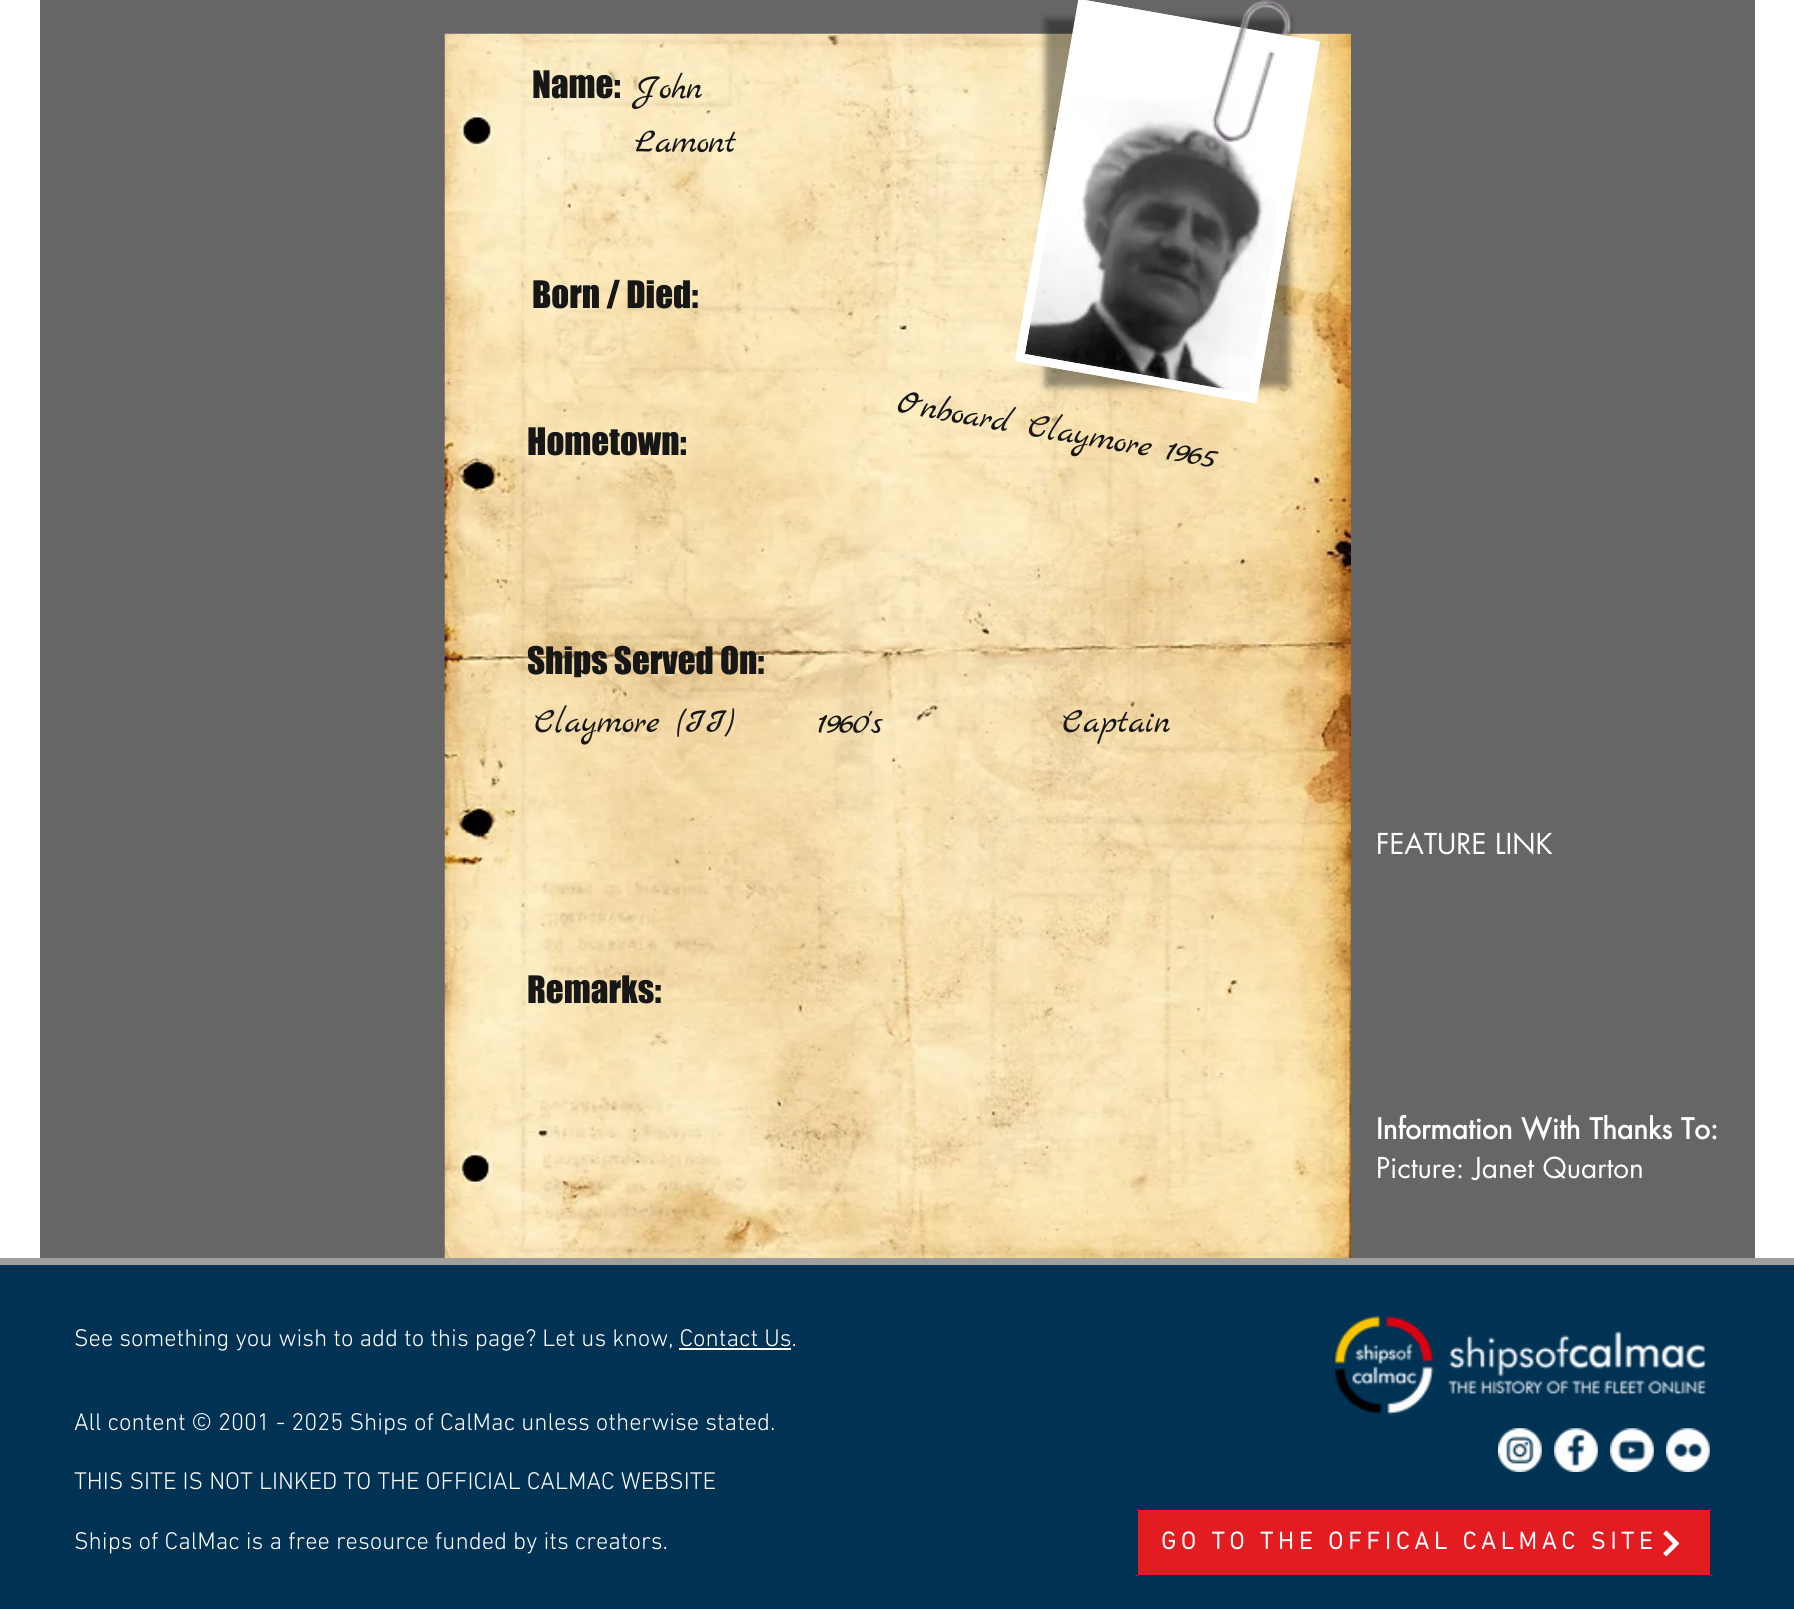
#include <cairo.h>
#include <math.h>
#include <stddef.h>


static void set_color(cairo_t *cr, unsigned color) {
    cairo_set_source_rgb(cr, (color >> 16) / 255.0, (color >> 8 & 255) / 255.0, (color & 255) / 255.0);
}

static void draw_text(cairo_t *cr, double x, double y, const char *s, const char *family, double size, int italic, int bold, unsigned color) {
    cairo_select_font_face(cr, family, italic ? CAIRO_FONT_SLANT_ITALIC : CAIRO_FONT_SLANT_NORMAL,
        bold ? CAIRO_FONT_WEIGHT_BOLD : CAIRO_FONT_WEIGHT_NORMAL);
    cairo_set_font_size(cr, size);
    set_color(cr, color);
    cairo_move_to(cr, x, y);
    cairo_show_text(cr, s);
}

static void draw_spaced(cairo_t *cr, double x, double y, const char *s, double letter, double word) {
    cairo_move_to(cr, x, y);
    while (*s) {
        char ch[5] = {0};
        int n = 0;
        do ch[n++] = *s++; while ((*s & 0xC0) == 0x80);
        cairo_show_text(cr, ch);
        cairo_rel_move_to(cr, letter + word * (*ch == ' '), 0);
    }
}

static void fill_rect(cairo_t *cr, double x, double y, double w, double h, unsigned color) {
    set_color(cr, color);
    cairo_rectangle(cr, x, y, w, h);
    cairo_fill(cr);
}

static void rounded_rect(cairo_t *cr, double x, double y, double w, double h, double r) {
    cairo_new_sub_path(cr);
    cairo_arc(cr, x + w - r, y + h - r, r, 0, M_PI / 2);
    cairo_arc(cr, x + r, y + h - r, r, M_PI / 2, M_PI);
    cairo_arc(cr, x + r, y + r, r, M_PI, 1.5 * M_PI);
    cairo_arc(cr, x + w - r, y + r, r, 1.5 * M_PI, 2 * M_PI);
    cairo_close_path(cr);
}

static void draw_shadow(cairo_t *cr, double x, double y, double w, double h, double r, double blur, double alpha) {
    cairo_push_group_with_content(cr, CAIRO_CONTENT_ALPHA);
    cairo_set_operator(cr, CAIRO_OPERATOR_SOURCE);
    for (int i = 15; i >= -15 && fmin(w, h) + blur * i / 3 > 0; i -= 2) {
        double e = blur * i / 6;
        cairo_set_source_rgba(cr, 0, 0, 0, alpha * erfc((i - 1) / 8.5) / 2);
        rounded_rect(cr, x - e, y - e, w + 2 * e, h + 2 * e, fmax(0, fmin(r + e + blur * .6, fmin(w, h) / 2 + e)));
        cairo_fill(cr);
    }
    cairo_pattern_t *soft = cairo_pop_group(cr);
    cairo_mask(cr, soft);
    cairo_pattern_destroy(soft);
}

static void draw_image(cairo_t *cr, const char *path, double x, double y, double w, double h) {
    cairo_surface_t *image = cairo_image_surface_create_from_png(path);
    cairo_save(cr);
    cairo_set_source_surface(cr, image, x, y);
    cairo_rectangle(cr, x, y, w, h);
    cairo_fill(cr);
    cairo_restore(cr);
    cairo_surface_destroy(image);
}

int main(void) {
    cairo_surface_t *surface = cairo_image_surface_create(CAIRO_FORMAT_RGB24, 1794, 1609);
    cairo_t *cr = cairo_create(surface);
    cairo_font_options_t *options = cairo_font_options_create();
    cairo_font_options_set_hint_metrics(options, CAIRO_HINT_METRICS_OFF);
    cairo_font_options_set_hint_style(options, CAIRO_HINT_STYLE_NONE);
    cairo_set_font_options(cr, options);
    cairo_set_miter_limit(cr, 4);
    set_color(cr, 0xFFFFFF);
    cairo_paint(cr);
    fill_rect(cr, 40, 0, 1715, 1258, 0x666666);
    draw_image(cr, "assets/img3.png", 444, 33, 907, 1225);
    set_color(cr, 0x000000);
    draw_shadow(cr, 1045, 19, 245, 368, 0, 3.5, 0.4);
    set_color(cr, 0xFFFFFF);
    cairo_new_path(cr);
    cairo_move_to(cr, 1079, -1);
    cairo_line_to(cr, 1320, 42);
    cairo_line_to(cr, 1256, 403);
    cairo_line_to(cr, 1015, 361);
    cairo_close_path(cr);
    cairo_fill(cr);
    cairo_new_path(cr);
    cairo_move_to(cr, 1082, 4);
    cairo_line_to(cr, 1314.5, 45);
    cairo_line_to(cr, 1252.5, 398.5);
    cairo_line_to(cr, 1020, 357.5);
    cairo_close_path(cr);
    cairo_set_line_width(cr, 8.8);
    cairo_stroke(cr);
    draw_image(cr, "assets/img1.png", 1025, 99, 252, 294);
    draw_image(cr, "assets/img2.png", 1212, 0, 80, 142);
    draw_text(cr, 532, 98, "Name:", "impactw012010", 35, 0, 0, 0x171717);
    draw_text(cr, 635, 98, "John", "Marck Script", 35, 0, 0, 0x171717);
    draw_text(cr, 635, 152, "Lamont", "Marck Script", 35, 0, 0, 0x171717);
    draw_text(cr, 532, 308, "Born / Died:", "impactw012010", 35, 0, 0, 0x171717);
    draw_text(cr, 527, 455, "Hometown:", "impactw012010", 35, 0, 0, 0x171717);
    cairo_save(cr);
    cairo_translate(cr, 896, 412);
    cairo_rotate(cr, 10 * M_PI / 180);
    draw_text(cr, 0, 0, "Onboard Claymore 1965", "Marck Script", 35, 0, 0, 0x171717);
    cairo_restore(cr);
    draw_text(cr, 527, 674, "Ships Served On:", "impactw012010", 35, 0, 0, 0x171717);
    draw_text(cr, 534, 732, "Claymore (II)", "Marck Script", 35, 0, 0, 0x171717);
    draw_text(cr, 819, 733, "1960's", "Marck Script", 35, 0, 0, 0x171717);
    draw_text(cr, 1062, 732, "Captain", "Marck Script", 35, 0, 0, 0x171717);
    draw_text(cr, 1376, 854, "FEATURE LINK", "futura", 28, 0, 0, 0xFFFFFF);
    draw_text(cr, 527, 1003, "Remarks:", "impactw012010", 35, 0, 0, 0x171717);
    draw_text(cr, 1376, 1139, "Information With Thanks To:", "futura", 28, 0, 1, 0xFFFFFF);
    draw_text(cr, 1376, 1178, "Picture: Janet Quarton", "futura", 28, 0, 0, 0xFFFFFF);
    fill_rect(cr, 0, 1265, 1794, 344, 0x003254);
    fill_rect(cr, 0, 1258, 1794, 7, 0xA0A09F);
    draw_text(cr, 74, 1346, "See something you wish to add to this page? Let us know, Contact Us.", "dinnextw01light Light", 24.5, 0, 0, 0xFFFFFF);
    fill_rect(cr, 679, 1348, 112, 2, 0xFFFFFF);
    draw_image(cr, "assets/img4.png", 1334, 1315, 373, 100);
    draw_text(cr, 74, 1430, "All content © 2001 - 2025 Ships of CalMac unless otherwise stated.", "dinnextw01light Light", 24.5, 0, 0, 0xFFFFFF);
    draw_text(cr, 74, 1489, "THIS SITE IS NOT LINKED TO THE OFFICIAL CALMAC WEBSITE", "dinnextw01light Light", 24.5, 0, 0, 0xFFFFFF);
    draw_text(cr, 74, 1549, "Ships of CalMac is a free resource funded by its creators.", "dinnextw01light Light", 24.5, 0, 0, 0xFFFFFF);
    draw_image(cr, "assets/img5.png", 1498, 1428, 44, 44);
    draw_image(cr, "assets/img6.png", 1554, 1428, 44, 44);
    draw_image(cr, "assets/img7.png", 1610, 1428, 44, 44);
    draw_image(cr, "assets/img8.png", 1666, 1428, 44, 44);
    fill_rect(cr, 1138, 1510, 572, 65, 0xE21C21);
    cairo_select_font_face(cr, "dinnextw01light", CAIRO_FONT_SLANT_NORMAL, CAIRO_FONT_WEIGHT_BOLD);
    set_color(cr, 0xFFFFFF);
    draw_spaced(cr, 1161, 1549, "GO TO THE OFFICAL CALMAC SITE", 4.9, 0);
    draw_image(cr, "assets/img9.png", 1663, 1530, 17, 27);
    cairo_surface_write_to_png(surface, "output.png");
    cairo_font_options_destroy(options);
    cairo_destroy(cr);
    cairo_surface_destroy(surface);
    return 0;
}
